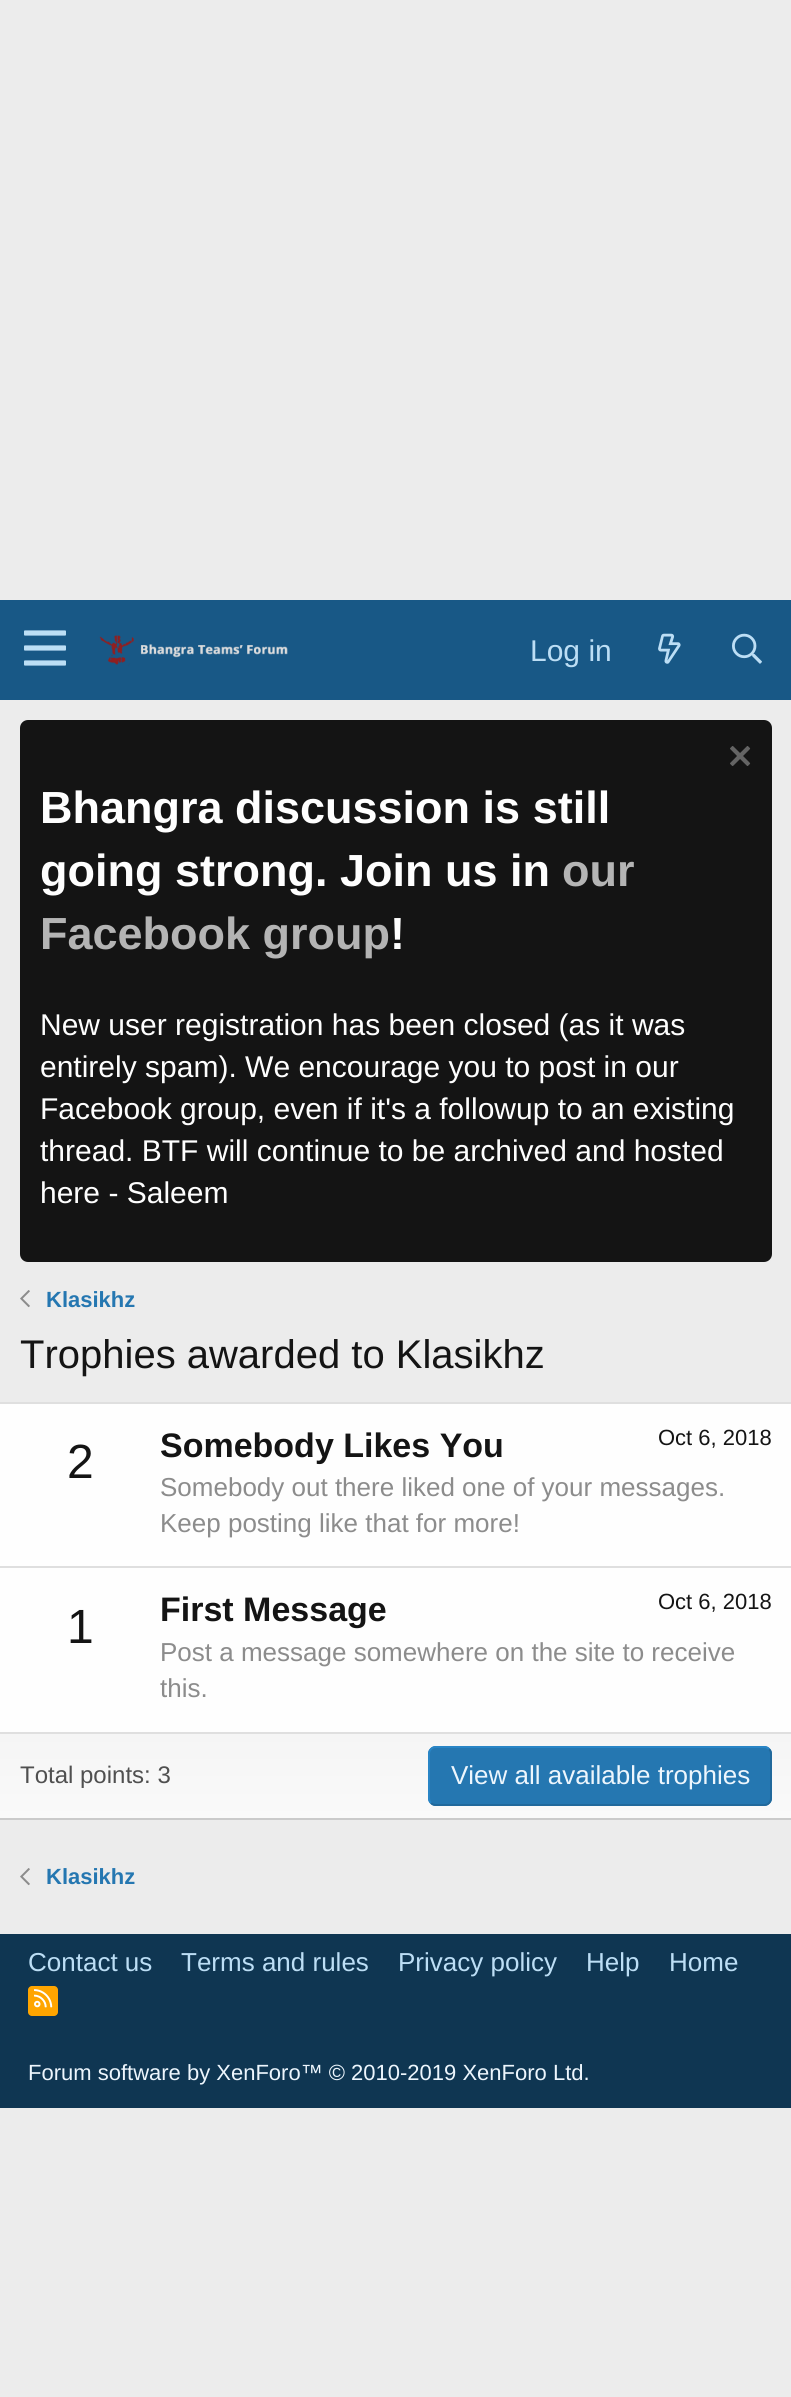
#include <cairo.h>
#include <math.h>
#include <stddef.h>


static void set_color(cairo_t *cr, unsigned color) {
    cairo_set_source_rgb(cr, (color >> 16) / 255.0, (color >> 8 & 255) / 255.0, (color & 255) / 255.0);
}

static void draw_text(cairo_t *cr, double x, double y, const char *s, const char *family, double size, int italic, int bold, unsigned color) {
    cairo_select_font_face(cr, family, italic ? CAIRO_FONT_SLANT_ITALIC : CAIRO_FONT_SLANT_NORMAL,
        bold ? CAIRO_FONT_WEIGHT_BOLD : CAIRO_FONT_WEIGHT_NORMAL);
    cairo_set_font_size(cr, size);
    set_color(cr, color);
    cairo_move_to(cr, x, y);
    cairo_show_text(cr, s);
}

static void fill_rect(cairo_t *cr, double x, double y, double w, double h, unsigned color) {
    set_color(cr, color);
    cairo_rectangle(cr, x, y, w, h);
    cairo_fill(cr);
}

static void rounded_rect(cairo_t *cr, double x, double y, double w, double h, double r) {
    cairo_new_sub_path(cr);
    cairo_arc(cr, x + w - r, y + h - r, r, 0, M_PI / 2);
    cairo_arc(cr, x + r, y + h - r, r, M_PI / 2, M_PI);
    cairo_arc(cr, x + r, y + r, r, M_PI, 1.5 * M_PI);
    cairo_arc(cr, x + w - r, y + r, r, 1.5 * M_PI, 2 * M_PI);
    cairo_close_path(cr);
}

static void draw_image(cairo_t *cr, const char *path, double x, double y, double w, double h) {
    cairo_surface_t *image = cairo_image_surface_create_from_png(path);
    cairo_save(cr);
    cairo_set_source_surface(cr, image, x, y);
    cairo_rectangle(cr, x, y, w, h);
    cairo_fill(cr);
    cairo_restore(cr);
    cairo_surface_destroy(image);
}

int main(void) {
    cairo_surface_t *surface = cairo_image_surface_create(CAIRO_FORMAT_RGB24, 791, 2397);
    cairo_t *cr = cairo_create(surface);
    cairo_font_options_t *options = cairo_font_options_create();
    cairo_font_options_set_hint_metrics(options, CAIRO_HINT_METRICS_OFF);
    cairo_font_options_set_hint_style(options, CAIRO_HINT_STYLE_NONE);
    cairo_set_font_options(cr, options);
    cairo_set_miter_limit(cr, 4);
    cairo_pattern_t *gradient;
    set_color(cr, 0xECECEC);
    cairo_paint(cr);
    fill_rect(cr, 0, 600, 791, 100, 0x185886);
    draw_image(cr, "assets/img1.png", 24, 630, 42, 36);
    draw_image(cr, "assets/img2.png", 99, 635, 189, 31);
    draw_text(cr, 530, 661, "Log in", "Liberation Sans", 30, 0, 0, 0xBCDEF5);
    draw_image(cr, "assets/img3.png", 658, 633, 23, 31);
    draw_image(cr, "assets/img4.png", 732, 633, 30, 31);
    set_color(cr, 0x141414);
    rounded_rect(cr, 20, 720, 752, 542, 8);
    cairo_fill(cr);
    draw_image(cr, "assets/img5.png", 730, 746, 21, 20);
    draw_text(cr, 40, 823, "Bhangra discussion is still", "Liberation Sans", 45, 0, 1, 0xFEFEFE);
    draw_text(cr, 40, 886, "going strong. Join us in", "Liberation Sans", 45, 0, 1, 0xFEFEFE);
    draw_text(cr, 562, 886, "our", "Liberation Sans", 45, 0, 1, 0xB4B4B4);
    draw_text(cr, 40, 949, "Facebook group", "Liberation Sans", 45, 0, 1, 0xB4B4B4);
    draw_text(cr, 390, 949, "!", "Liberation Sans", 45, 0, 1, 0xFEFEFE);
    draw_text(cr, 40, 1035, "New user registration has been closed (as it was", "Liberation Sans", 30, 0, 0, 0xFEFEFE);
    draw_text(cr, 40, 1077, "entirely spam). We encourage you to post in our", "Liberation Sans", 30, 0, 0, 0xFEFEFE);
    draw_text(cr, 40, 1119, "Facebook group, even if it's a followup to an existing", "Liberation Sans", 30, 0, 0, 0xFEFEFE);
    draw_text(cr, 40, 1161, "thread. BTF will continue to be archived and hosted", "Liberation Sans", 30, 0, 0, 0xFEFEFE);
    draw_text(cr, 40, 1203, "here - Saleem", "Liberation Sans", 30, 0, 0, 0xFEFEFE);
    draw_image(cr, "assets/img6.png", 20, 1290, 10, 18);
    draw_text(cr, 46, 1307, "Klasikhz", "Liberation Sans", 22, 0, 1, 0x2577B1);
    draw_text(cr, 20, 1368, "Trophies awarded to Klasikhz", "Liberation Sans", 40, 0, 0, 0x141414);
    fill_rect(cr, 0, 1404, 791, 328, 0xFEFEFE);
    fill_rect(cr, 0, 1402, 791, 2, 0xDFDFDF);
    fill_rect(cr, 0, 1818, 791, 2, 0xCBCBCB);
    draw_text(cr, 67, 1478, "2", "Liberation Sans", 48, 0, 0, 0x141414);
    draw_text(cr, 160, 1457, "Somebody Likes You", "Liberation Sans", 34, 0, 1, 0x141414);
    draw_text(cr, 658, 1445, "Oct 6, 2018", "Liberation Sans", 22, 0, 0, 0x141414);
    draw_text(cr, 160, 1496, "Somebody out there liked one of your messages.", "Liberation Sans", 26, 0, 0, 0x8C8C8C);
    draw_text(cr, 160, 1532, "Keep posting like that for more!", "Liberation Sans", 26, 0, 0, 0x8C8C8C);
    fill_rect(cr, 0, 1566, 791, 2, 0xDFDFDF);
    draw_text(cr, 67, 1643, "1", "Liberation Sans", 48, 0, 0, 0x141414);
    draw_text(cr, 160, 1621, "First Message", "Liberation Sans", 34, 0, 1, 0x141414);
    draw_text(cr, 658, 1609, "Oct 6, 2018", "Liberation Sans", 22, 0, 0, 0x141414);
    draw_text(cr, 160, 1661, "Post a message somewhere on the site to receive", "Liberation Sans", 26, 0, 0, 0x8C8C8C);
    draw_text(cr, 160, 1697, "this.", "Liberation Sans", 26, 0, 0, 0x8C8C8C);
    gradient = cairo_pattern_create_linear(396, 1734, 396, 1818);
    cairo_pattern_add_color_stop_rgba(gradient, 0, 0.961, 0.961, 0.961, 1);
    cairo_pattern_add_color_stop_rgba(gradient, 1, 0.98, 0.98, 0.98, 1);
    cairo_set_source(cr, gradient);
    cairo_pattern_destroy(gradient);
    cairo_rectangle(cr, 0, 1734, 791, 84);
    cairo_fill(cr);
    fill_rect(cr, 0, 1732, 791, 2, 0xDFDFDF);
    draw_text(cr, 20, 1783, "Total points: 3", "Liberation Sans", 24, 0, 0, 0x505050);
    set_color(cr, 0x2577B1);
    rounded_rect(cr, 428, 1746, 344, 60, 8);
    cairo_fill(cr);
    cairo_new_path(cr);
    cairo_move_to(cr, 769, 1749);
    cairo_curve_to(cr, 770.5, 1750.5, 771, 1752, 771, 1754);
    cairo_line_to(cr, 771, 1798);
    cairo_curve_to(cr, 771, 1800, 770.5, 1801.5, 769, 1803);
    cairo_curve_to(cr, 767.5, 1804.5, 766, 1805, 764, 1805);
    cairo_line_to(cr, 436, 1805);
    cairo_curve_to(cr, 434, 1805, 432.5, 1804.5, 431, 1803);
    set_color(cr, 0x21699C);
    cairo_stroke(cr);
    cairo_new_path(cr);
    cairo_move_to(cr, 431, 1803);
    cairo_curve_to(cr, 429.5, 1801.5, 429, 1800, 429, 1798);
    cairo_line_to(cr, 429, 1754);
    cairo_curve_to(cr, 429, 1752, 429.5, 1750.5, 431, 1749);
    cairo_curve_to(cr, 432.5, 1747.5, 434, 1747, 436, 1747);
    cairo_line_to(cr, 764, 1747);
    cairo_curve_to(cr, 766, 1747, 767.5, 1747.5, 769, 1749);
    set_color(cr, 0x2985C6);
    cairo_stroke(cr);
    draw_text(cr, 451, 1784, "View all available trophies", "Liberation Sans", 26, 0, 0, 0xEDF6FD);
    draw_image(cr, "assets/img6.png", 20, 1868, 10, 18);
    draw_text(cr, 46, 1884, "Klasikhz", "Liberation Sans", 22, 0, 1, 0x2577B1);
    fill_rect(cr, 0, 1934, 791, 174, 0x0F3652);
    draw_text(cr, 28, 1971, "Contact us", "Liberation Sans", 26, 0, 0, 0xBCDEF5);
    draw_text(cr, 181, 1971, "Terms and rules", "Liberation Sans", 26, 0, 0, 0xBCDEF5);
    draw_text(cr, 398, 1971, "Privacy policy", "Liberation Sans", 26, 0, 0, 0xBCDEF5);
    draw_text(cr, 586, 1971, "Help", "Liberation Sans", 26, 0, 0, 0xBCDEF5);
    draw_text(cr, 669, 1971, "Home", "Liberation Sans", 26, 0, 0, 0xBCDEF5);
    set_color(cr, 0xFFA500);
    rounded_rect(cr, 28, 1986, 30, 30, 4);
    cairo_fill(cr);
    draw_image(cr, "assets/img7.png", 34, 1989, 19, 19);
    draw_text(cr, 28, 2080, "Forum software by XenForo™ © 2010-2019 XenForo Ltd.", "Liberation Sans", 22, 0, 0, 0xEDF6FD);
    cairo_surface_write_to_png(surface, "output.png");
    cairo_font_options_destroy(options);
    cairo_destroy(cr);
    cairo_surface_destroy(surface);
    return 0;
}
